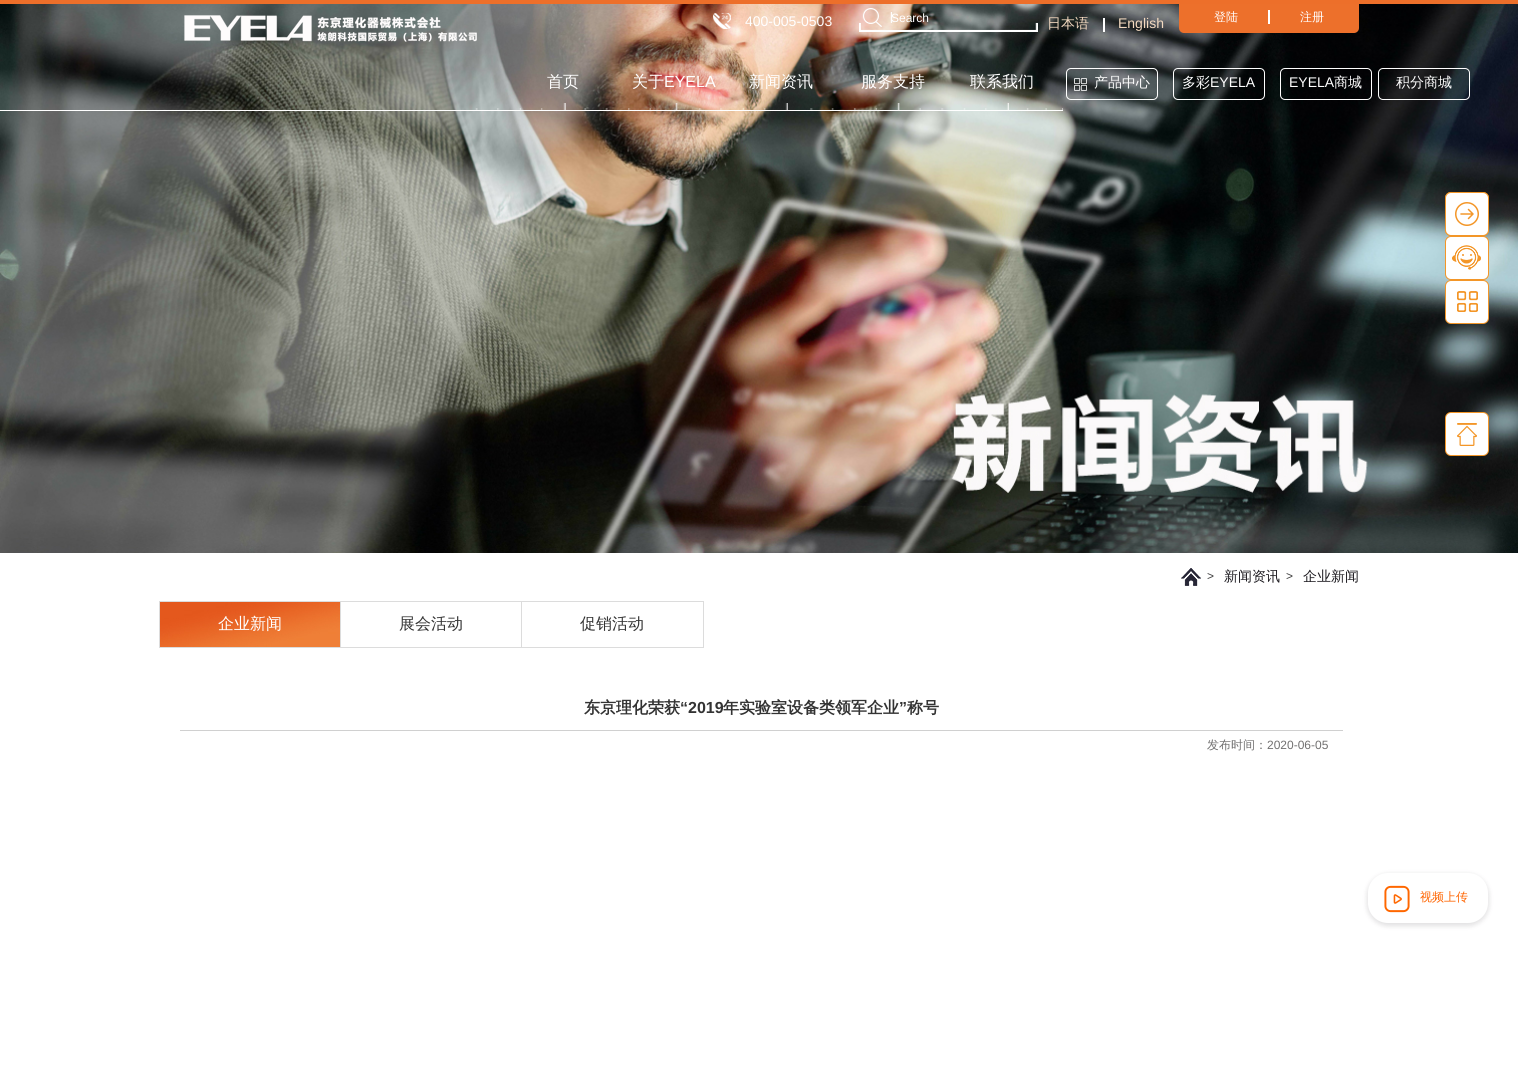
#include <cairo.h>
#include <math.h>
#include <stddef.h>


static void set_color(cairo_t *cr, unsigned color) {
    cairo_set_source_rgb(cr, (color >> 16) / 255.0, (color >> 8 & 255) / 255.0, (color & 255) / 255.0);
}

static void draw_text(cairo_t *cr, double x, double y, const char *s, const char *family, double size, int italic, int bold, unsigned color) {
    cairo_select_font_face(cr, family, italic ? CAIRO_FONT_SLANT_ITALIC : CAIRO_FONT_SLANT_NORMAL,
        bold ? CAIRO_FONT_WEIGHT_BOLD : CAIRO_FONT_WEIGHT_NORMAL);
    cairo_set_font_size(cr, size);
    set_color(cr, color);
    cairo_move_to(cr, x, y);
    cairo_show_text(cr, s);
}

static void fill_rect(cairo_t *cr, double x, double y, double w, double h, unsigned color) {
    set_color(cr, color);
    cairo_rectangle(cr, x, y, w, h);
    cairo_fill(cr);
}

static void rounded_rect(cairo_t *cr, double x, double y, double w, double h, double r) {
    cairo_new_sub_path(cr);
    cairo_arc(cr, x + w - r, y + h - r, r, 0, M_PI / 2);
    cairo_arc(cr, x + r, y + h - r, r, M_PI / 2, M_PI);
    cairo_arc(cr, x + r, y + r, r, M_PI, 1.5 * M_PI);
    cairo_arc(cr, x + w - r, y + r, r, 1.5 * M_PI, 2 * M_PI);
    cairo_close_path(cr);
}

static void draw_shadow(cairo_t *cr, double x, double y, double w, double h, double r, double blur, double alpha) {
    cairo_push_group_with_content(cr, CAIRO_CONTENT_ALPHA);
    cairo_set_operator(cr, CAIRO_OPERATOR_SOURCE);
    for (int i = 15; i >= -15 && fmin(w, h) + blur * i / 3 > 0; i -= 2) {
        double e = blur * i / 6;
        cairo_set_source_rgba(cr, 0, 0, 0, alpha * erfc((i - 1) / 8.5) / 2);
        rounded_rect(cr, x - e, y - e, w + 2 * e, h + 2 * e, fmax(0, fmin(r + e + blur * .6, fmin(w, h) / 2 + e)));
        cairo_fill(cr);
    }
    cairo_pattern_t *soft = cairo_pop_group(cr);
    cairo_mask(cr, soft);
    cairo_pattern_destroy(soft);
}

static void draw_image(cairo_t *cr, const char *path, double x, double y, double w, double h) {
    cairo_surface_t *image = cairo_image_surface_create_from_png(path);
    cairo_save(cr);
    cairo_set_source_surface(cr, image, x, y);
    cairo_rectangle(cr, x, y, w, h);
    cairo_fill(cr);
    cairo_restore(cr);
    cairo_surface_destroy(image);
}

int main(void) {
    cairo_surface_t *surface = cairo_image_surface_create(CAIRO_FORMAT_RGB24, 1518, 1073);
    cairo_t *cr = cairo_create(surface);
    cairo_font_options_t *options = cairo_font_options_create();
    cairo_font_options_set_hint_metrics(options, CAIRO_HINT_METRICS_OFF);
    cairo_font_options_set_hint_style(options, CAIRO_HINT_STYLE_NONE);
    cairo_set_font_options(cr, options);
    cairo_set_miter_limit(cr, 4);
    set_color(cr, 0xFFFFFF);
    cairo_paint(cr);
    draw_image(cr, "assets/img1.png", 0, 4, 1518, 549);
    set_color(cr, 0xED702B);
    rounded_rect(cr, 1179, -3, 180, 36, 5);
    cairo_fill(cr);
    fill_rect(cr, 0, 0, 1518, 4, 0xED6F2A);
    draw_image(cr, "assets/img2.png", 184, 15, 293, 27);
    draw_image(cr, "assets/img3.png", 713, 13, 18, 16);
    draw_text(cr, 745, 26, "400-005-0503", "Liberation Sans", 14, 0, 0, 0xFFFFFF);
    draw_image(cr, "assets/img4.png", 859, 8, 179, 24);
    draw_text(cr, 891, 22, "Search", "Liberation Sans", 12, 0, 0, 0xFFFFFF);
    draw_text(cr, 1047, 28, "日本语", "WenQuanYi Zen Hei Medium", 14, 0, 0, 0xF4DAC1);
    fill_rect(cr, 1103, 18, 2, 14, 0xFFFFFF);
    draw_text(cr, 1118, 28, "English", "Liberation Sans", 14, 0, 0, 0xF4DAC1);
    draw_text(cr, 1214, 21, "登陆", "WenQuanYi Zen Hei Medium", 12, 0, 0, 0xFFFFFF);
    fill_rect(cr, 1268, 10, 2, 14, 0xFFFFFF);
    draw_text(cr, 1300, 21, "注册", "WenQuanYi Zen Hei Medium", 12, 0, 0, 0xFFFFFF);
    draw_image(cr, "assets/img5.png", 0, 103, 1063, 8);
    draw_text(cr, 547, 87, "首页", "WenQuanYi Zen Hei Medium", 16, 0, 0, 0xFFFFFF);
    draw_text(cr, 632, 87, "关于", "WenQuanYi Zen Hei Medium", 16, 0, 0, 0xFFFFFF);
    draw_text(cr, 664, 87, "EYELA", "Liberation Sans", 16, 0, 0, 0xFFFFFF);
    draw_text(cr, 749, 87, "新闻资讯", "WenQuanYi Zen Hei Medium", 16, 0, 0, 0xFFFFFF);
    draw_text(cr, 861, 87, "服务支持", "WenQuanYi Zen Hei Medium", 16, 0, 0, 0xFFFFFF);
    draw_text(cr, 970, 87, "联系我们", "WenQuanYi Zen Hei Medium", 16, 0, 0, 0xFFFFFF);
    rounded_rect(cr, 1066.5, 68.5, 91, 31, 4.5);
    cairo_set_line_width(cr, 1);
    cairo_stroke(cr);
    draw_image(cr, "assets/img6.png", 1074, 78, 13, 13);
    draw_text(cr, 1094, 87, "产品中心", "WenQuanYi Zen Hei Medium", 14, 0, 0, 0xFFFFFF);
    rounded_rect(cr, 1173.5, 68.5, 91, 31, 4.5);
    cairo_stroke(cr);
    draw_text(cr, 1182, 87, "多彩", "WenQuanYi Zen Hei Medium", 14, 0, 0, 0xFFFFFF);
    draw_text(cr, 1210, 87, "EYELA", "Liberation Sans", 14, 0, 0, 0xFFFFFF);
    rounded_rect(cr, 1280.5, 68.5, 91, 31, 4.5);
    cairo_stroke(cr);
    draw_text(cr, 1289, 87, "EYELA", "Liberation Sans", 14, 0, 0, 0xFFFFFF);
    draw_text(cr, 1334, 87, "商城", "WenQuanYi Zen Hei Medium", 14, 0, 0, 0xFFFFFF);
    rounded_rect(cr, 1378.5, 68.5, 91, 31, 4.5);
    cairo_stroke(cr);
    draw_text(cr, 1396, 87, "积分商城", "WenQuanYi Zen Hei Medium", 14, 0, 0, 0xFFFFFF);
    draw_image(cr, "assets/img7.png", 1445, 192, 44, 44);
    draw_image(cr, "assets/img8.png", 1445, 192, 44, 44);
    draw_image(cr, "assets/img9.png", 1445, 236, 44, 44);
    draw_image(cr, "assets/img10.png", 1445, 280, 44, 44);
    draw_image(cr, "assets/img11.png", 1445, 412, 44, 44);
    draw_image(cr, "assets/img12.png", 1181, 568, 20, 18);
    draw_text(cr, 1207, 580, ">", "Liberation Sans", 12, 0, 0, 0x3E3E3E);
    draw_text(cr, 1224, 581, "新闻资讯", "WenQuanYi Zen Hei Medium", 14, 0, 0, 0x1E1C21);
    draw_text(cr, 1286, 580, ">", "Liberation Sans", 12, 0, 0, 0x3E3E3E);
    draw_text(cr, 1303, 581, "企业新闻", "WenQuanYi Zen Hei Medium", 14, 0, 0, 0x1E1C21);
    draw_image(cr, "assets/img13.png", 160, 602, 180, 45);
    fill_rect(cr, 159, 601, 545, 1, 0xDCDCDC);
    fill_rect(cr, 159, 647, 543, 1, 0xDCDCDC);
    fill_rect(cr, 159, 601, 1, 47, 0xDCDCDC);
    draw_text(cr, 218, 629, "企业新闻", "WenQuanYi Zen Hei Medium", 16, 0, 0, 0xFFFFFF);
    fill_rect(cr, 340, 601, 1, 47, 0xDCDCDC);
    draw_text(cr, 399, 629, "展会活动", "WenQuanYi Zen Hei Medium", 16, 0, 0, 0x333333);
    fill_rect(cr, 521, 601, 1, 47, 0xDCDCDC);
    draw_text(cr, 580, 629, "促销活动", "WenQuanYi Zen Hei Medium", 16, 0, 0, 0x333333);
    fill_rect(cr, 703, 601, 1, 47, 0xDCDCDC);
    fill_rect(cr, 702, 647, 2, 1, 0xDCDCDC);
    fill_rect(cr, 180, 730, 1163, 1, 0xD0D0D0);
    draw_text(cr, 584, 713, "东京理化荣获", "WenQuanYi Zen Hei", 16, 0, 1, 0x333333);
    draw_text(cr, 680, 713, "“2019", "Liberation Sans", 16, 0, 1, 0x333333);
    draw_text(cr, 723, 713, "年实验室设备类领军企业", "WenQuanYi Zen Hei", 16, 0, 1, 0x333333);
    draw_text(cr, 899, 713, "”", "Liberation Sans", 16, 0, 1, 0x333333);
    draw_text(cr, 907, 713, "称号", "WenQuanYi Zen Hei", 16, 0, 1, 0x333333);
    draw_text(cr, 1207, 749, "发布时间：", "WenQuanYi Zen Hei Medium", 12, 0, 0, 0x717070);
    draw_text(cr, 1267, 749, "2020-06-05", "Liberation Sans", 12, 0, 0, 0x717070);
    set_color(cr, 0x403C43);
    draw_shadow(cr, 1367, 874, 122, 52, 21, 2.5, 0.16);
    set_color(cr, 0xFFFFFF);
    rounded_rect(cr, 1368, 873, 120, 50, 20);
    cairo_fill(cr);
    draw_image(cr, "assets/img14.png", 1384, 885, 26, 28);
    draw_text(cr, 1420, 901, "视频上传", "WenQuanYi Zen Hei Medium", 12, 0, 0, 0xFF6400);
    cairo_surface_write_to_png(surface, "output.png");
    cairo_font_options_destroy(options);
    cairo_destroy(cr);
    cairo_surface_destroy(surface);
    return 0;
}
